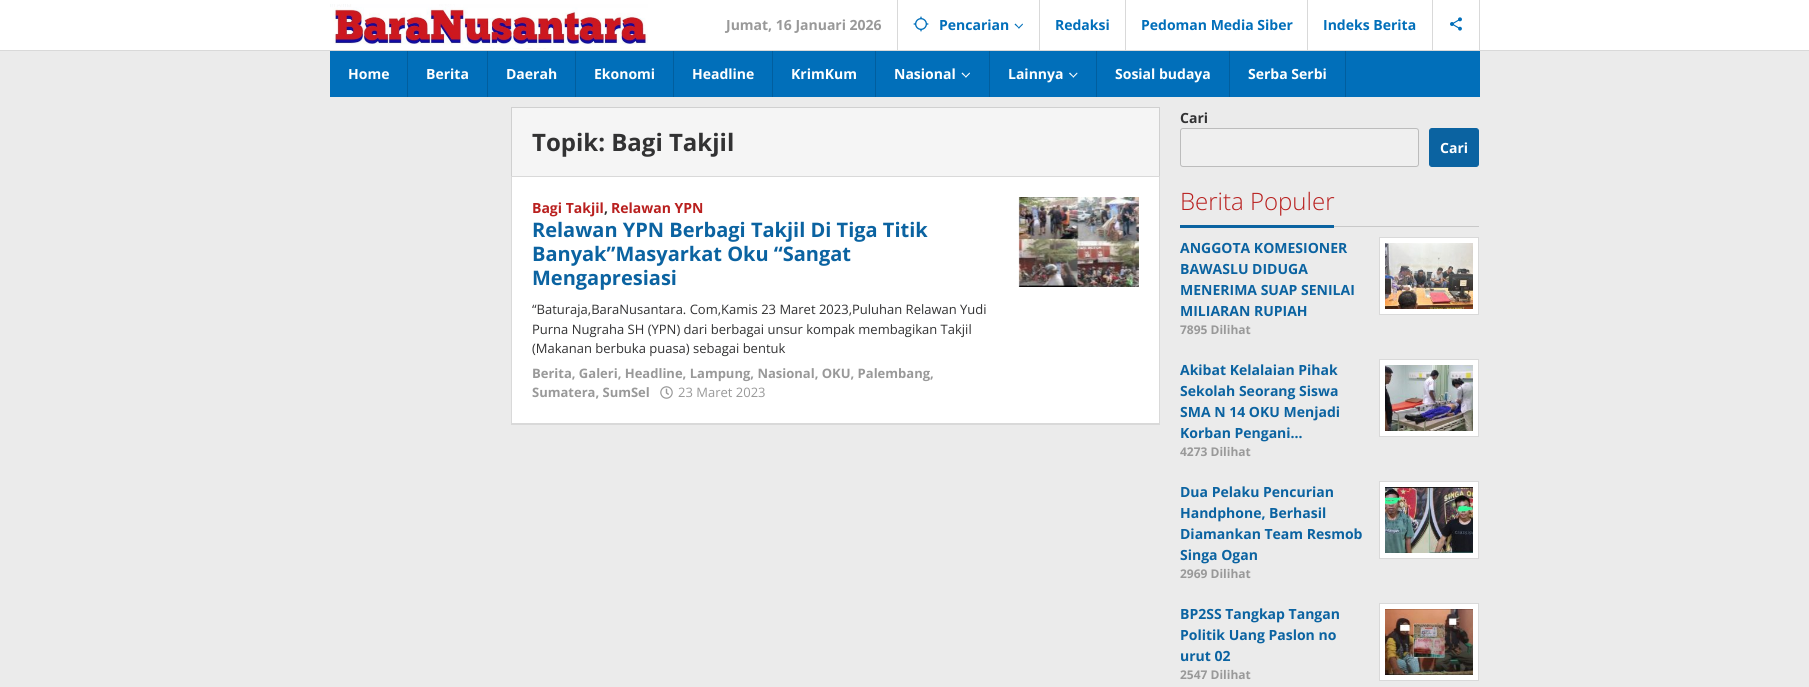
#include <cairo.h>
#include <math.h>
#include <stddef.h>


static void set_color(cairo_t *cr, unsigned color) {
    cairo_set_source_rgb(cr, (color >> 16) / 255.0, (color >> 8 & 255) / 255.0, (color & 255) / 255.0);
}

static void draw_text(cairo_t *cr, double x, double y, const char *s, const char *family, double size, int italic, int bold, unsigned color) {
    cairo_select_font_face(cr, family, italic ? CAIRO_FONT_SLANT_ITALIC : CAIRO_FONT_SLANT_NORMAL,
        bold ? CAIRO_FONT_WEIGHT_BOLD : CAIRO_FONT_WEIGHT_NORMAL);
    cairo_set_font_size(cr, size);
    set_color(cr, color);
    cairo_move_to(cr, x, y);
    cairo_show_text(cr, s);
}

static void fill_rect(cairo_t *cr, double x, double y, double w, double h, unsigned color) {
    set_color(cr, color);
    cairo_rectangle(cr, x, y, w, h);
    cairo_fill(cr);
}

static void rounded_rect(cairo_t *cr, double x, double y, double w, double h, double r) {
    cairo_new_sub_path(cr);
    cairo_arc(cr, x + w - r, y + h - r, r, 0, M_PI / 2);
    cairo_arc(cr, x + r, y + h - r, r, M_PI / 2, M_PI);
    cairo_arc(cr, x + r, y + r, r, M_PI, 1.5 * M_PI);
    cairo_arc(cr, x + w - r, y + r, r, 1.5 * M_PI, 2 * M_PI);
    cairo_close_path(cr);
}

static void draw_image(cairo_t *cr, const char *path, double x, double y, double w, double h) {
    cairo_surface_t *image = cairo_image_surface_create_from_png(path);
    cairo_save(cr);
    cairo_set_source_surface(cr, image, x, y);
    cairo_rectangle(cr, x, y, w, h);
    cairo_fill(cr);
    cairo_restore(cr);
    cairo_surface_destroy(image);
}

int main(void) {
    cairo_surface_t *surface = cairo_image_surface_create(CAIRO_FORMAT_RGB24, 1809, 687);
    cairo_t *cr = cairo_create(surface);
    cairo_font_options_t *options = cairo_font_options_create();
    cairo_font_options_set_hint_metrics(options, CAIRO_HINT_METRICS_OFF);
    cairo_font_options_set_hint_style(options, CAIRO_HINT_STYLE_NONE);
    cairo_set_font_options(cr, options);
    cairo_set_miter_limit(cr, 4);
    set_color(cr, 0xEBEBEB);
    cairo_paint(cr);
    fill_rect(cr, 0, 0, 1809, 50, 0xFFFFFF);
    fill_rect(cr, 0, 50, 1809, 1, 0xD9D9D9);
    draw_image(cr, "assets/img1.png", 330, 4, 318, 45);
    fill_rect(cr, 897, 0, 1, 50, 0xD9D9D9);
    draw_text(cr, 726, 30, "Jumat, 16 Januari 2026", "Open Sans", 14, 0, 1, 0x999999);
    fill_rect(cr, 1039, 0, 1, 50, 0xD9D9D9);
    draw_image(cr, "assets/img2.png", 913, 16, 16, 16);
    draw_text(cr, 939, 30, "Pencarian", "Open Sans", 14, 0, 1, 0x016FBA);
    cairo_new_path(cr);
    cairo_move_to(cr, 1022.5, 23.5);
    cairo_line_to(cr, 1023, 24.5);
    cairo_line_to(cr, 1019, 28.5);
    cairo_line_to(cr, 1018, 28);
    cairo_close_path(cr);
    cairo_fill(cr);
    cairo_new_path(cr);
    cairo_move_to(cr, 1015.5, 23.5);
    cairo_line_to(cr, 1019.5, 28);
    cairo_line_to(cr, 1019, 28.5);
    cairo_line_to(cr, 1014.5, 24.5);
    cairo_close_path(cr);
    cairo_fill(cr);
    fill_rect(cr, 1125, 0, 1, 50, 0xD9D9D9);
    draw_text(cr, 1055, 30, "Redaksi", "Open Sans", 14, 0, 1, 0x016FBA);
    fill_rect(cr, 1307, 0, 1, 50, 0xD9D9D9);
    draw_text(cr, 1141, 30, "Pedoman Media Siber", "Open Sans", 14, 0, 1, 0x016FBA);
    fill_rect(cr, 1432, 0, 1, 50, 0xD9D9D9);
    draw_text(cr, 1323, 30, "Indeks Berita", "Open Sans", 14, 0, 1, 0x016FBA);
    fill_rect(cr, 1479, 0, 1, 50, 0xD9D9D9);
    draw_image(cr, "assets/img3.png", 1450, 17, 12, 14);
    fill_rect(cr, 330, 51, 1150, 46, 0x016FBA);
    fill_rect(cr, 407, 51, 1, 46, 0x015E9E);
    draw_text(cr, 348, 79, "Home", "Open Sans", 14, 0, 1, 0xFFFFFF);
    fill_rect(cr, 487, 51, 1, 46, 0x015E9E);
    draw_text(cr, 426, 79, "Berita", "Open Sans", 14, 0, 1, 0xFFFFFF);
    fill_rect(cr, 575, 51, 1, 46, 0x015E9E);
    draw_text(cr, 506, 79, "Daerah", "Open Sans", 14, 0, 1, 0xFFFFFF);
    fill_rect(cr, 673, 51, 1, 46, 0x015E9E);
    draw_text(cr, 594, 79, "Ekonomi", "Open Sans", 14, 0, 1, 0xFFFFFF);
    fill_rect(cr, 772, 51, 1, 46, 0x015E9E);
    draw_text(cr, 692, 79, "Headline", "Open Sans", 14, 0, 1, 0xFFFFFF);
    fill_rect(cr, 875, 51, 1, 46, 0x015E9E);
    draw_text(cr, 791, 79, "KrimKum", "Open Sans", 14, 0, 1, 0xFFFFFF);
    fill_rect(cr, 989, 51, 1, 46, 0x015E9E);
    draw_text(cr, 894, 79, "Nasional", "Open Sans", 14, 0, 1, 0xFFFFFF);
    cairo_new_path(cr);
    cairo_move_to(cr, 969.5, 72.5);
    cairo_line_to(cr, 970, 73.5);
    cairo_line_to(cr, 966, 77.5);
    cairo_line_to(cr, 965, 77);
    cairo_close_path(cr);
    cairo_fill(cr);
    cairo_new_path(cr);
    cairo_move_to(cr, 962.5, 72.5);
    cairo_line_to(cr, 966.5, 77);
    cairo_line_to(cr, 966, 77.5);
    cairo_line_to(cr, 961.5, 73.5);
    cairo_close_path(cr);
    cairo_fill(cr);
    fill_rect(cr, 1096, 51, 1, 46, 0x015E9E);
    draw_text(cr, 1008, 79, "Lainnya", "Open Sans", 14, 0, 1, 0xFFFFFF);
    cairo_new_path(cr);
    cairo_move_to(cr, 1077, 72.5);
    cairo_line_to(cr, 1077.5, 73.5);
    cairo_line_to(cr, 1073.5, 77.5);
    cairo_line_to(cr, 1072.5, 77);
    cairo_close_path(cr);
    cairo_fill(cr);
    cairo_new_path(cr);
    cairo_move_to(cr, 1070, 72.5);
    cairo_line_to(cr, 1074, 77);
    cairo_line_to(cr, 1073.5, 77.5);
    cairo_line_to(cr, 1069, 73.5);
    cairo_close_path(cr);
    cairo_fill(cr);
    fill_rect(cr, 1229, 51, 1, 46, 0x015E9E);
    draw_text(cr, 1115, 79, "Sosial budaya", "Open Sans", 14, 0, 1, 0xFFFFFF);
    fill_rect(cr, 1345, 51, 1, 46, 0x015E9E);
    draw_text(cr, 1248, 79, "Serba Serbi", "Open Sans", 14, 0, 1, 0xFFFFFF);
    set_color(cr, 0xF5F5F5);
    cairo_rectangle(cr, 511.5, 107.5, 648, 69);
    cairo_fill_preserve(cr);
    set_color(cr, 0xD0D0D0);
    cairo_set_line_width(cr, 1);
    cairo_stroke(cr);
    draw_text(cr, 532, 151, "Topik: Bagi Takjil", "Open Sans", 24, 0, 1, 0x323233);
    fill_rect(cr, 512, 177, 647, 246, 0xFFFFFF);
    cairo_rectangle(cr, 511.5, 176.5, 648, 248);
    set_color(cr, 0xD9D9D9);
    cairo_stroke(cr);
    fill_rect(cr, 512, 423, 647, 1, 0xD9D9D9);
    draw_text(cr, 532, 213, "Bagi Takjil", "Open Sans", 14, 0, 1, 0xB9201F);
    draw_text(cr, 604, 213, ",", "Open Sans", 14, 0, 1, 0x323233);
    draw_text(cr, 611, 213, "Relawan YPN", "Open Sans", 14, 0, 1, 0xB9201F);
    draw_text(cr, 532, 237, "Relawan YPN Berbagi Takjil Di Tiga Titik", "Open Sans", 20, 0, 1, 0x0B63A1);
    draw_text(cr, 532, 261, "Banyak”Masyarkat Oku “Sangat", "Open Sans", 20, 0, 1, 0x0B63A1);
    draw_text(cr, 532, 285, "Mengapresiasi", "Open Sans", 20, 0, 1, 0x0B63A1);
    draw_text(cr, 532, 314, "“Baturaja,BaraNusantara. Com,Kamis 23 Maret 2023,Puluhan Relawan Yudi", "Open Sans", 13, 0, 0, 0x323233);
    draw_text(cr, 532, 334, "Purna Nugraha SH (YPN) dari berbagai unsur kompak membagikan Takjil", "Open Sans", 13, 0, 0, 0x323233);
    draw_text(cr, 532, 353, "(Makanan berbuka puasa) sebagai bentuk", "Open Sans", 13, 0, 0, 0x323233);
    draw_text(cr, 532, 378, "Berita, Galeri, Headline, Lampung, Nasional, OKU, Palembang,", "Open Sans", 13, 0, 1, 0x999999);
    draw_text(cr, 532, 397, "Sumatera, SumSel", "Open Sans", 13, 0, 1, 0x999999);
    draw_image(cr, "assets/img4.png", 660, 386, 13, 13);
    draw_text(cr, 678, 397, "23 Maret 2023", "Open Sans", 13, 0, 0, 0x999999);
    draw_image(cr, "assets/img5.png", 1018, 197, 121, 90);
    draw_text(cr, 1180, 123, "Cari", "Open Sans", 14, 0, 1, 0x323233);
    set_color(cr, 0xEFEFEF);
    rounded_rect(cr, 1180.5, 128.5, 238, 38, 2.5);
    cairo_fill_preserve(cr);
    set_color(cr, 0xBCBCBC);
    cairo_stroke(cr);
    set_color(cr, 0x0B63A1);
    rounded_rect(cr, 1429.5, 128.5, 49, 38, 2.5);
    cairo_fill_preserve(cr);
    cairo_stroke(cr);
    draw_text(cr, 1440, 153, "Cari", "Open Sans", 14, 0, 1, 0xFFFFFF);
    fill_rect(cr, 1334, 226, 145, 1, 0xC8C8C8);
    fill_rect(cr, 1180, 225, 154, 3, 0x0B63A1);
    draw_text(cr, 1180, 210, "Berita Populer", "Open Sans Light", 24, 0, 0, 0xB9201F);
    draw_text(cr, 1180, 253, "ANGGOTA KOMESIONER", "Open Sans", 14, 0, 1, 0x0B63A1);
    set_color(cr, 0xFFFFFF);
    cairo_rectangle(cr, 1379.5, 237.5, 99, 77);
    cairo_fill_preserve(cr);
    set_color(cr, 0xD9D9D9);
    cairo_stroke(cr);
    draw_image(cr, "assets/img6.png", 1385, 243, 88, 66);
    draw_text(cr, 1180, 274, "BAWASLU DIDUGA", "Open Sans", 14, 0, 1, 0x0B63A1);
    draw_text(cr, 1180, 295, "MENERIMA SUAP SENILAI", "Open Sans", 14, 0, 1, 0x0B63A1);
    draw_text(cr, 1180, 316, "MILIARAN RUPIAH", "Open Sans", 14, 0, 1, 0x0B63A1);
    draw_text(cr, 1180, 334, "7895 Dilihat", "Open Sans", 12, 0, 1, 0x999999);
    draw_text(cr, 1180, 375, "Akibat Kelalaian Pihak", "Open Sans", 14, 0, 1, 0x0B63A1);
    set_color(cr, 0xFFFFFF);
    cairo_rectangle(cr, 1379.5, 359.5, 99, 77);
    cairo_fill_preserve(cr);
    set_color(cr, 0xD9D9D9);
    cairo_stroke(cr);
    draw_image(cr, "assets/img7.png", 1385, 365, 88, 66);
    draw_text(cr, 1180, 396, "Sekolah Seorang Siswa", "Open Sans", 14, 0, 1, 0x0B63A1);
    draw_text(cr, 1180, 417, "SMA N 14 OKU Menjadi", "Open Sans", 14, 0, 1, 0x0B63A1);
    draw_text(cr, 1180, 438, "Korban Pengani…", "Open Sans", 14, 0, 1, 0x0B63A1);
    draw_text(cr, 1180, 456, "4273 Dilihat", "Open Sans", 12, 0, 1, 0x999999);
    draw_text(cr, 1180, 497, "Dua Pelaku Pencurian", "Open Sans", 14, 0, 1, 0x0B63A1);
    set_color(cr, 0xFFFFFF);
    cairo_rectangle(cr, 1379.5, 481.5, 99, 77);
    cairo_fill_preserve(cr);
    set_color(cr, 0xD9D9D9);
    cairo_stroke(cr);
    draw_image(cr, "assets/img8.png", 1385, 487, 88, 66);
    draw_text(cr, 1180, 518, "Handphone, Berhasil", "Open Sans", 14, 0, 1, 0x0B63A1);
    draw_text(cr, 1180, 539, "Diamankan Team Resmob", "Open Sans", 14, 0, 1, 0x0B63A1);
    draw_text(cr, 1180, 560, "Singa Ogan", "Open Sans", 14, 0, 1, 0x0B63A1);
    draw_text(cr, 1180, 578, "2969 Dilihat", "Open Sans", 12, 0, 1, 0x999999);
    draw_text(cr, 1180, 619, "BP2SS Tangkap Tangan", "Open Sans", 14, 0, 1, 0x0B63A1);
    set_color(cr, 0xFFFFFF);
    cairo_rectangle(cr, 1379.5, 603.5, 99, 77);
    cairo_fill_preserve(cr);
    set_color(cr, 0xD9D9D9);
    cairo_stroke(cr);
    draw_image(cr, "assets/img9.png", 1385, 609, 88, 66);
    draw_text(cr, 1180, 640, "Politik Uang Paslon no", "Open Sans", 14, 0, 1, 0x0B63A1);
    draw_text(cr, 1180, 661, "urut 02", "Open Sans", 14, 0, 1, 0x0B63A1);
    draw_text(cr, 1180, 679, "2547 Dilihat", "Open Sans", 12, 0, 1, 0x999999);
    cairo_surface_write_to_png(surface, "output.png");
    cairo_font_options_destroy(options);
    cairo_destroy(cr);
    cairo_surface_destroy(surface);
    return 0;
}
